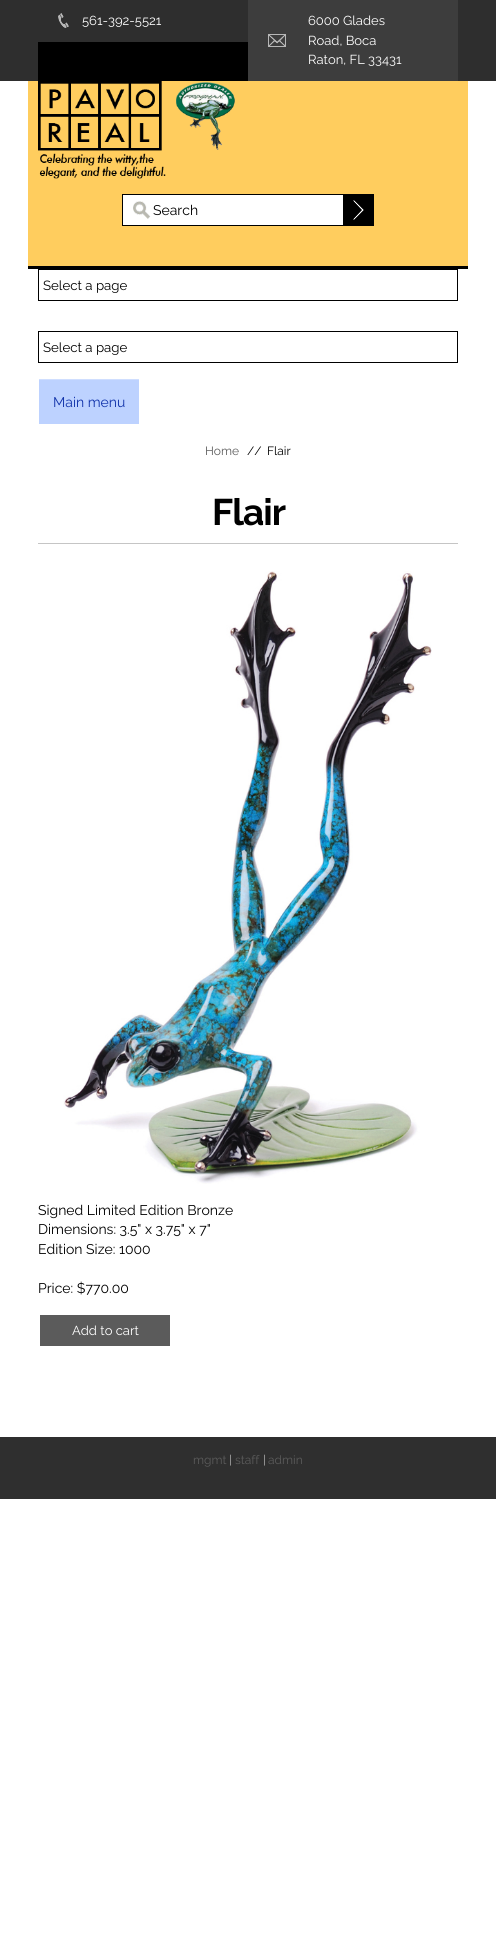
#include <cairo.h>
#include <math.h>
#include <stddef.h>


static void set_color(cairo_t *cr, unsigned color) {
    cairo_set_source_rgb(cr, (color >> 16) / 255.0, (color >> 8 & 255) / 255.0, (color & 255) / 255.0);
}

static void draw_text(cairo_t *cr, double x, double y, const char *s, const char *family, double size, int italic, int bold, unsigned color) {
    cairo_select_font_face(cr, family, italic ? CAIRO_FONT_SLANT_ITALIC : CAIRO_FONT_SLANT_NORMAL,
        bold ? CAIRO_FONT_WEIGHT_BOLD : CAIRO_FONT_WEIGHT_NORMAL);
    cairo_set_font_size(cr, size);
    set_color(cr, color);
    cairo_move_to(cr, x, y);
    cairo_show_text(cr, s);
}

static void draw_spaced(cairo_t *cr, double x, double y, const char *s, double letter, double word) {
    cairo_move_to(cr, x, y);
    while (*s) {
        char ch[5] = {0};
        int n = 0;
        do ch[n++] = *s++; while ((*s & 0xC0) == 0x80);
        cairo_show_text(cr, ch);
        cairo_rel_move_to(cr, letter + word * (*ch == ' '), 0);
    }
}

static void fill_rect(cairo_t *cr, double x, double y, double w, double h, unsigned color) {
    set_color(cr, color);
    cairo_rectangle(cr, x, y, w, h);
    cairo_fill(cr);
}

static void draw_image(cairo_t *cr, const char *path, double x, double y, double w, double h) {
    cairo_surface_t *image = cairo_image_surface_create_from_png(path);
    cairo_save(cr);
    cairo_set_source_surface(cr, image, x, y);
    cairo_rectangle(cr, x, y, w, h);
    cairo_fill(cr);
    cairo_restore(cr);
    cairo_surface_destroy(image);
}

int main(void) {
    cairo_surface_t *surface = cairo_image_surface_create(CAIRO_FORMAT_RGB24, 496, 1953);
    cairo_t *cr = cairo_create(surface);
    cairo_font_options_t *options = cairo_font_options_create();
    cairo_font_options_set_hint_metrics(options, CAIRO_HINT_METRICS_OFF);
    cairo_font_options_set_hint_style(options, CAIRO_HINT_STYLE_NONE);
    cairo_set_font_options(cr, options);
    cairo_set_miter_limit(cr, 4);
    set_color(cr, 0xFFFFFF);
    cairo_paint(cr);
    fill_rect(cr, 0, 0, 496, 81, 0x2E2E2E);
    fill_rect(cr, 38, 42, 210, 39, 0x000000);
    draw_image(cr, "assets/img1.png", 58, 13, 11, 15);
    draw_text(cr, 82, 25, "561-392-5521", "Raleway", 13, 0, 0, 0xFFFFFF);
    fill_rect(cr, 248, 0, 210, 81, 0x3D3D3D);
    draw_image(cr, "assets/img2.png", 268, 34, 18, 13);
    draw_text(cr, 308, 25, "6000 Glades", "Raleway", 13, 0, 0, 0xFFFFFF);
    draw_text(cr, 308, 45, "Road, Boca", "Raleway", 13, 0, 0, 0xFFFFFF);
    draw_text(cr, 308, 64, "Raton, FL 33431", "Raleway", 13, 0, 0, 0xFFFFFF);
    fill_rect(cr, 28, 81, 440, 185, 0xFFCD5E);
    fill_rect(cr, 28, 266, 440, 3, 0x000000);
    draw_image(cr, "assets/img3.png", 38, 81, 197, 98);
    fill_rect(cr, 123, 195, 220, 30, 0xFFFFFF);
    draw_image(cr, "assets/img4.png", 133, 201, 18, 18);
    cairo_rectangle(cr, 122.5, 194.5, 251, 31);
    set_color(cr, 0x000000);
    cairo_set_line_width(cr, 1);
    cairo_stroke(cr);
    draw_text(cr, 153, 215, "Search", "Raleway", 14, 0, 0, 0x000000);
    fill_rect(cr, 343, 195, 30, 30, 0x000000);
    draw_image(cr, "assets/img5.png", 353, 200, 11, 20);
    cairo_rectangle(cr, 38.5, 269.5, 419, 31);
    cairo_stroke(cr);
    draw_text(cr, 43, 290, "Select a page", "Raleway", 13.25, 0, 0, 0x000000);
    cairo_rectangle(cr, 38.5, 331.5, 419, 31);
    cairo_stroke(cr);
    draw_text(cr, 43, 352, "Select a page", "Raleway", 13.25, 0, 0, 0x000000);
    fill_rect(cr, 39, 380, 100, 44, 0xBDD2FF);
    draw_text(cr, 53, 407, "Main menu", "Raleway", 14, 0, 0, 0x1133AA);
    fill_rect(cr, 38, 379, 101, 1, 0xCFDEFF);
    fill_rect(cr, 38, 379, 1, 1, 0xFFFFFF);
    draw_text(cr, 205, 455, "Home", "Raleway", 12, 0, 0, 0x5B5B5B);
    draw_text(cr, 247, 455, "//", "Raleway", 12, 0, 0, 0x000000);
    draw_text(cr, 267, 455, "Flair", "Raleway", 12, 0, 0, 0x000000);
    fill_rect(cr, 38, 543, 420, 1, 0xC5C5C5);
    cairo_select_font_face(cr, "Raleway", CAIRO_FONT_SLANT_NORMAL, CAIRO_FONT_WEIGHT_BOLD);
    cairo_set_font_size(cr, 37);
    set_color(cr, 0x000000);
    draw_spaced(cr, 212, 525, "Flair", -1, 0);
    draw_image(cr, "assets/img6.png", 63, 571, 369, 613);
    draw_text(cr, 38, 1215, "Signed Limited Edition Bronze", "Raleway", 14, 0, 0, 0x000000);
    draw_text(cr, 38, 1234, "Dimensions: 3.5\" x 3.75\" x 7\"", "Raleway", 14, 0, 0, 0x000000);
    draw_text(cr, 38, 1254, "Edition Size: 1000", "Raleway", 14, 0, 0, 0x000000);
    draw_text(cr, 38, 1293, "Price: $770.00", "Raleway", 14, 0, 0, 0x000000);
    fill_rect(cr, 40, 1315, 130, 31, 0x5B5B5B);
    draw_text(cr, 72, 1335, "Add to cart", "Raleway", 13, 0, 0, 0xFFFFFF);
    fill_rect(cr, 0, 1437, 496, 62, 0x2F2F2F);
    draw_text(cr, 193, 1464, "mgmt", "Raleway", 12, 0, 0, 0x5B5B5B);
    draw_text(cr, 229, 1464, "|", "Raleway", 12, 0, 0, 0xB7B7B7);
    draw_text(cr, 235, 1464, "staff", "Raleway", 12, 0, 0, 0x5B5B5B);
    draw_text(cr, 263, 1464, "|", "Raleway", 12, 0, 0, 0xB7B7B7);
    draw_text(cr, 268, 1464, "admin", "Raleway", 12, 0, 0, 0x5B5B5B);
    cairo_surface_write_to_png(surface, "output.png");
    cairo_font_options_destroy(options);
    cairo_destroy(cr);
    cairo_surface_destroy(surface);
    return 0;
}
